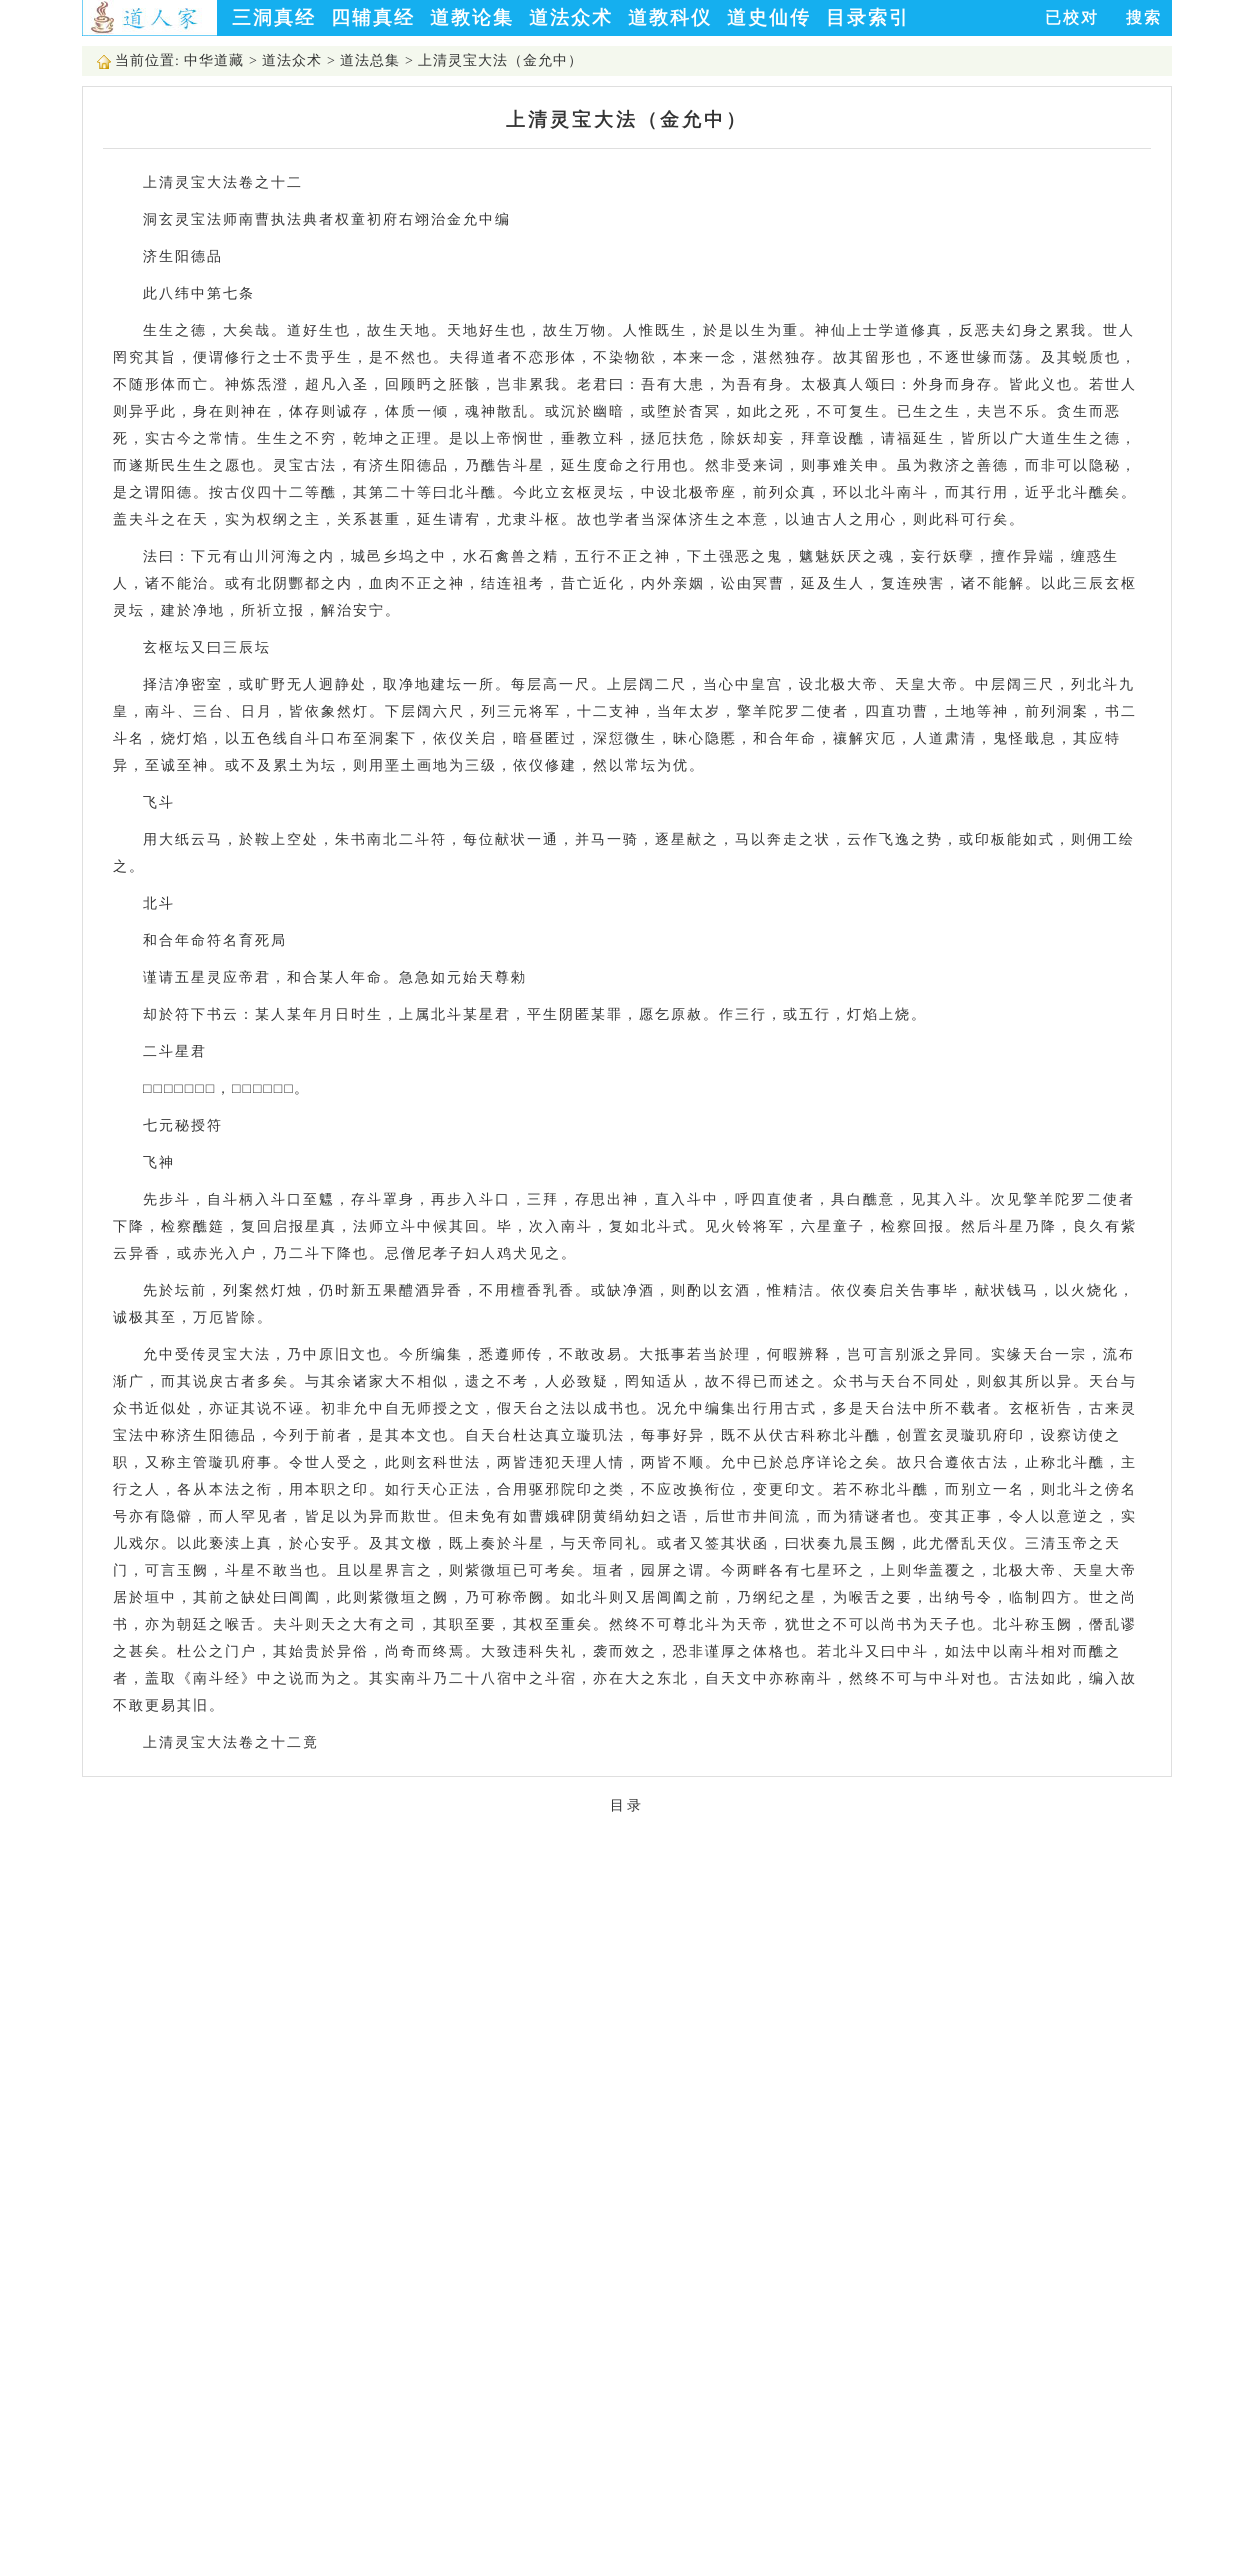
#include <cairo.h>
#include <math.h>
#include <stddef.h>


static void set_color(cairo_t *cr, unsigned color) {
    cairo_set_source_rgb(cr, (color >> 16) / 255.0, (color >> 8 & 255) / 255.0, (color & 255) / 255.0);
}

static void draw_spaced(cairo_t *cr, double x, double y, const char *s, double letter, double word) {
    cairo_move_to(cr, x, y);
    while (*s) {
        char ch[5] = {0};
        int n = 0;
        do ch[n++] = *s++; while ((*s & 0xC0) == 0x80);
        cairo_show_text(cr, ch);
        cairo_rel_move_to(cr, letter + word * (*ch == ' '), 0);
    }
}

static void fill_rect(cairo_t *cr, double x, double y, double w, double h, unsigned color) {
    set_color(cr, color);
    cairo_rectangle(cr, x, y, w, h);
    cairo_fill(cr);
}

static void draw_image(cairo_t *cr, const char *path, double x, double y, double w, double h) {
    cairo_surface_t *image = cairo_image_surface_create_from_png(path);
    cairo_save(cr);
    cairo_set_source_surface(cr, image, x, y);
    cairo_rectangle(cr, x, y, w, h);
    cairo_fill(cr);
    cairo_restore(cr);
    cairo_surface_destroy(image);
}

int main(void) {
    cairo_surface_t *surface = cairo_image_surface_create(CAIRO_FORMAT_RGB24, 1253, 2568);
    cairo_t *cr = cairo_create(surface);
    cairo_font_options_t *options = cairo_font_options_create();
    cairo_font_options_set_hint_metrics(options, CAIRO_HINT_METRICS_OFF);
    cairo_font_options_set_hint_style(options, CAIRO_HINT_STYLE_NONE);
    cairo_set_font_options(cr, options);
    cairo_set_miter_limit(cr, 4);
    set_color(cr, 0xFFFFFF);
    cairo_paint(cr);
    draw_image(cr, "assets/img1.png", 82, 0, 135, 36);
    fill_rect(cr, 217, 0, 955, 36, 0x15AFEF);
    cairo_select_font_face(cr, "WenQuanYi Zen Hei", CAIRO_FONT_SLANT_NORMAL, CAIRO_FONT_WEIGHT_BOLD);
    cairo_set_font_size(cr, 19);
    set_color(cr, 0xFFFFFF);
    draw_spaced(cr, 232, 24, "三洞真经", 2, 0);
    draw_spaced(cr, 331, 24, "四辅真经", 2, 0);
    draw_spaced(cr, 430, 24, "道教论集", 2, 0);
    draw_spaced(cr, 529, 24, "道法众术", 2, 0);
    draw_spaced(cr, 628, 24, "道教科仪", 2, 0);
    draw_spaced(cr, 727, 24, "道史仙传", 2, 0);
    draw_spaced(cr, 826, 24, "目录索引", 2, 0);
    cairo_set_font_size(cr, 16);
    draw_spaced(cr, 1045, 23, "已校对", 2, 0);
    draw_spaced(cr, 1126, 23, "搜索", 2, 0);
    fill_rect(cr, 82, 46, 1090, 30, 0xF4F8EE);
    draw_image(cr, "assets/img2.png", 97, 55, 14, 14);
    cairo_select_font_face(cr, "WenQuanYi Zen Hei Medium", CAIRO_FONT_SLANT_NORMAL, CAIRO_FONT_WEIGHT_NORMAL);
    cairo_set_font_size(cr, 14);
    set_color(cr, 0x333333);
    draw_spaced(cr, 115, 65, "当前位置", 1, 0);
    cairo_select_font_face(cr, "Liberation Serif", CAIRO_FONT_SLANT_NORMAL, CAIRO_FONT_WEIGHT_NORMAL);
    draw_spaced(cr, 175, 65, ":", 1, 0);
    cairo_select_font_face(cr, "WenQuanYi Zen Hei Medium", CAIRO_FONT_SLANT_NORMAL, CAIRO_FONT_WEIGHT_NORMAL);
    draw_spaced(cr, 184, 65, "中华道藏", 1, 0);
    cairo_select_font_face(cr, "Liberation Serif", CAIRO_FONT_SLANT_NORMAL, CAIRO_FONT_WEIGHT_NORMAL);
    draw_spaced(cr, 249, 65, ">", 1, 0);
    cairo_select_font_face(cr, "WenQuanYi Zen Hei Medium", CAIRO_FONT_SLANT_NORMAL, CAIRO_FONT_WEIGHT_NORMAL);
    draw_spaced(cr, 262, 65, "道法众术", 1, 0);
    cairo_select_font_face(cr, "Liberation Serif", CAIRO_FONT_SLANT_NORMAL, CAIRO_FONT_WEIGHT_NORMAL);
    draw_spaced(cr, 327, 65, ">", 1, 0);
    cairo_select_font_face(cr, "WenQuanYi Zen Hei Medium", CAIRO_FONT_SLANT_NORMAL, CAIRO_FONT_WEIGHT_NORMAL);
    draw_spaced(cr, 340, 65, "道法总集", 1, 0);
    cairo_select_font_face(cr, "Liberation Serif", CAIRO_FONT_SLANT_NORMAL, CAIRO_FONT_WEIGHT_NORMAL);
    draw_spaced(cr, 405, 65, ">", 1, 0);
    cairo_select_font_face(cr, "WenQuanYi Zen Hei Medium", CAIRO_FONT_SLANT_NORMAL, CAIRO_FONT_WEIGHT_NORMAL);
    draw_spaced(cr, 418, 65, "上清灵宝大法（金允中）", 1, 0);
    cairo_rectangle(cr, 82.5, 86.5, 1089, 1690);
    set_color(cr, 0xDFDFDF);
    cairo_set_line_width(cr, 1);
    cairo_stroke(cr);
    fill_rect(cr, 103, 148, 1048, 1, 0xDFDFDF);
    cairo_select_font_face(cr, "WenQuanYi Zen Hei", CAIRO_FONT_SLANT_NORMAL, CAIRO_FONT_WEIGHT_BOLD);
    cairo_set_font_size(cr, 19);
    set_color(cr, 0x333333);
    draw_spaced(cr, 506, 126, "上清灵宝大法（金允中）", 3, 0);
    cairo_select_font_face(cr, "WenQuanYi Zen Hei Medium", CAIRO_FONT_SLANT_NORMAL, CAIRO_FONT_WEIGHT_NORMAL);
    cairo_set_font_size(cr, 14);
    draw_spaced(cr, 143, 187, "上清灵宝大法卷之十二", 2, 0);
    draw_spaced(cr, 143, 224, "洞玄灵宝法师南曹执法典者权童初府右翊治金允中编", 2, 0);
    draw_spaced(cr, 143, 261, "济生阳德品", 2, 0);
    draw_spaced(cr, 143, 298, "此八纬中第七条", 2, 0);
    draw_spaced(cr, 143, 335, "生生之德，大矣哉。道好生也，故生天地。天地好生也，故生万物。人惟既生，於是以生为重。神仙上士学道修真，反恶夫幻身之累我。世人", 2, 0);
    draw_spaced(cr, 113, 362, "罔究其旨，便谓修行之士不贵乎生，是不然也。夫得道者不恋形体，不染物欲，本来一念，湛然独存。故其留形也，不逐世缘而荡。及其蜕质也，", 2, 0);
    draw_spaced(cr, 113, 389, "不随形体而亡。神炼炁澄，超凡入圣，回顾眄之胚骸，岂非累我。老君曰：吾有大患，为吾有身。太极真人颂曰：外身而身存。皆此义也。若世人", 2, 0);
    draw_spaced(cr, 113, 416, "则异乎此，身在则神在，体存则诚存，体质一倾，魂神散乱。或沉於幽暗，或堕於杳冥，如此之死，不可复生。已生之生，夫岂不乐。贪生而恶", 2, 0);
    draw_spaced(cr, 113, 443, "死，实古今之常情。生生之不穷，乾坤之正理。是以上帝悯世，垂教立科，拯厄扶危，除妖却妄，拜章设醮，请福延生，皆所以广大道生生之德，", 2, 0);
    draw_spaced(cr, 113, 470, "而遂斯民生生之愿也。灵宝古法，有济生阳德品，乃醮告斗星，延生度命之行用也。然非受来词，则事难关申。虽为救济之善德，而非可以隐秘，", 2, 0);
    draw_spaced(cr, 113, 497, "是之谓阳德。按古仪四十二等醮，其第二十等曰北斗醮。今此立玄枢灵坛，中设北极帝座，前列众真，环以北斗南斗，而其行用，近乎北斗醮矣。", 2, 0);
    draw_spaced(cr, 113, 524, "盖夫斗之在天，实为权纲之主，关系甚重，延生请宥，尤隶斗枢。故也学者当深体济生之本意，以迪古人之用心，则此科可行矣。", 2, 0);
    draw_spaced(cr, 143, 561, "法曰：下元有山川河海之内，城邑乡坞之中，水石禽兽之精，五行不正之神，下土强恶之鬼，魑魅妖厌之魂，妄行妖孽，擅作异端，缠惑生", 2, 0);
    draw_spaced(cr, 113, 588, "人，诸不能治。或有北阴酆都之内，血肉不正之神，结连祖考，昔亡近化，内外亲姻，讼由冥曹，延及生人，复连殃害，诸不能解。以此三辰玄枢", 2, 0);
    draw_spaced(cr, 113, 615, "灵坛，建於净地，所祈立报，解治安宁。", 2, 0);
    draw_spaced(cr, 143, 652, "玄枢坛又曰三辰坛", 2, 0);
    draw_spaced(cr, 143, 689, "择洁净密室，或旷野无人迥静处，取净地建坛一所。每层高一尺。上层阔二尺，当心中皇宫，设北极大帝、天皇大帝。中层阔三尺，列北斗九", 2, 0);
    draw_spaced(cr, 113, 716, "皇，南斗、三台、日月，皆依象然灯。下层阔六尺，列三元将军，十二支神，当年太岁，擎羊陀罗二使者，四直功曹，土地等神，前列洞案，书二", 2, 0);
    draw_spaced(cr, 113, 743, "斗名，烧灯焰，以五色线自斗口布至洞案下，依仪关启，暗昼匿过，深愆微生，昧心隐慝，和合年命，禳解灾厄，人道肃清，鬼怪戢息，其应特", 2, 0);
    draw_spaced(cr, 113, 770, "异，至诚至神。或不及累土为坛，则用垩土画地为三级，依仪修建，然以常坛为优。", 2, 0);
    draw_spaced(cr, 143, 807, "飞斗", 2, 0);
    draw_spaced(cr, 143, 844, "用大纸云马，於鞍上空处，朱书南北二斗符，每位献状一通，并马一骑，逐星献之，马以奔走之状，云作飞逸之势，或印板能如式，则佣工绘", 2, 0);
    draw_spaced(cr, 113, 871, "之。", 2, 0);
    draw_spaced(cr, 143, 908, "北斗", 2, 0);
    draw_spaced(cr, 143, 945, "和合年命符名育死局", 2, 0);
    draw_spaced(cr, 143, 982, "谨请五星灵应帝君，和合某人年命。急急如元始天尊勑", 2, 0);
    draw_spaced(cr, 143, 1019, "却於符下书云：某人某年月日时生，上属北斗某星君，平生阴匿某罪，愿乞原赦。作三行，或五行，灯焰上烧。", 2, 0);
    draw_spaced(cr, 143, 1056, "二斗星君", 2, 0);
    cairo_select_font_face(cr, "Liberation Serif", CAIRO_FONT_SLANT_NORMAL, CAIRO_FONT_WEIGHT_NORMAL);
    draw_spaced(cr, 143, 1093, "□□□□□□□", 2, 0);
    cairo_select_font_face(cr, "WenQuanYi Zen Hei Medium", CAIRO_FONT_SLANT_NORMAL, CAIRO_FONT_WEIGHT_NORMAL);
    draw_spaced(cr, 216, 1093, "，", 2, 0);
    cairo_select_font_face(cr, "Liberation Serif", CAIRO_FONT_SLANT_NORMAL, CAIRO_FONT_WEIGHT_NORMAL);
    draw_spaced(cr, 232, 1093, "□□□□□□", 2, 0);
    cairo_select_font_face(cr, "WenQuanYi Zen Hei Medium", CAIRO_FONT_SLANT_NORMAL, CAIRO_FONT_WEIGHT_NORMAL);
    draw_spaced(cr, 294, 1093, "。", 2, 0);
    draw_spaced(cr, 143, 1130, "七元秘授符", 2, 0);
    draw_spaced(cr, 143, 1167, "飞神", 2, 0);
    draw_spaced(cr, 143, 1204, "先步斗，自斗柄入斗口至魒，存斗罩身，再步入斗口，三拜，存思出神，直入斗中，呼四直使者，具白醮意，见其入斗。次见擎羊陀罗二使者", 2, 0);
    draw_spaced(cr, 113, 1231, "下降，检察醮筵，复回启报星真，法师立斗中候其回。毕，次入南斗，复如北斗式。见火铃将军，六星童子，检察回报。然后斗星乃降，良久有紫", 2, 0);
    draw_spaced(cr, 113, 1258, "云异香，或赤光入户，乃二斗下降也。忌僧尼孝子妇人鸡犬见之。", 2, 0);
    draw_spaced(cr, 143, 1295, "先於坛前，列案然灯烛，仍时新五果醴酒异香，不用檀香乳香。或缺净酒，则酌以玄酒，惟精洁。依仪奏启关告事毕，献状钱马，以火烧化，", 2, 0);
    draw_spaced(cr, 113, 1322, "诚极其至，万厄皆除。", 2, 0);
    draw_spaced(cr, 143, 1359, "允中受传灵宝大法，乃中原旧文也。今所编集，悉遵师传，不敢改易。大抵事若当於理，何暇辨释，岂可言别派之异同。实缘天台一宗，流布", 2, 0);
    draw_spaced(cr, 113, 1386, "渐广，而其说戾古者多矣。与其余诸家大不相似，遗之不考，人必致疑，罔知适从，故不得已而述之。众书与天台不同处，则叙其所以异。天台与", 2, 0);
    draw_spaced(cr, 113, 1413, "众书近似处，亦证其说不诬。初非允中自无师授之文，假天台之法以成书也。况允中编集出行用古式，多是天台法中所不载者。玄枢祈告，古来灵", 2, 0);
    draw_spaced(cr, 113, 1440, "宝法中称济生阳德品，今列于前者，是其本文也。自天台杜达真立璇玑法，每事好异，既不从伏古科称北斗醮，创置玄灵璇玑府印，设察访使之", 2, 0);
    draw_spaced(cr, 113, 1467, "职，又称主管璇玑府事。令世人受之，此则玄科世法，两皆违犯天理人情，两皆不顺。允中已於总序详论之矣。故只合遵依古法，止称北斗醮，主", 2, 0);
    draw_spaced(cr, 113, 1494, "行之人，各从本法之衔，用本职之印。如行天心正法，合用驱邪院印之类，不应改换衔位，变更印文。若不称北斗醮，而别立一名，则北斗之傍名", 2, 0);
    draw_spaced(cr, 113, 1521, "号亦有隐僻，而人罕见者，皆足以为异而欺世。但未免有如曹娥碑阴黄绢幼妇之语，后世市井间流，而为猜谜者也。变其正事，令人以意逆之，实", 2, 0);
    draw_spaced(cr, 113, 1548, "儿戏尔。以此亵渎上真，於心安乎。及其文檄，既上奏於斗星，与天帝同礼。或者又签其状函，曰状奏九晨玉阙，此尤僭乱天仪。三清玉帝之天", 2, 0);
    draw_spaced(cr, 113, 1575, "门，可言玉阙，斗星不敢当也。且以星界言之，则紫微垣已可考矣。垣者，园屏之谓。今两畔各有七星环之，上则华盖覆之，北极大帝、天皇大帝", 2, 0);
    draw_spaced(cr, 113, 1602, "居於垣中，其前之缺处曰阊阖，此则紫微垣之阙，乃可称帝阙。如北斗则又居阊阖之前，乃纲纪之星，为喉舌之要，出纳号令，临制四方。世之尚", 2, 0);
    draw_spaced(cr, 113, 1629, "书，亦为朝廷之喉舌。夫斗则天之大有之司，其职至要，其权至重矣。然终不可尊北斗为天帝，犹世之不可以尚书为天子也。北斗称玉阙，僭乱谬", 2, 0);
    draw_spaced(cr, 113, 1656, "之甚矣。杜公之门户，其始贵於异俗，尚奇而终焉。大致违科失礼，袭而效之，恐非谨厚之体格也。若北斗又曰中斗，如法中以南斗相对而醮之", 2, 0);
    draw_spaced(cr, 113, 1683, "者，盖取《南斗经》中之说而为之。其实南斗乃二十八宿中之斗宿，亦在大之东北，自天文中亦称南斗，然终不可与中斗对也。古法如此，编入故", 2, 0);
    draw_spaced(cr, 113, 1710, "不敢更易其旧。", 2, 0);
    draw_spaced(cr, 143, 1747, "上清灵宝大法卷之十二竟", 2, 0);
    draw_spaced(cr, 610, 1810, "目录", 3, 0);
    cairo_surface_write_to_png(surface, "output.png");
    cairo_font_options_destroy(options);
    cairo_destroy(cr);
    cairo_surface_destroy(surface);
    return 0;
}
